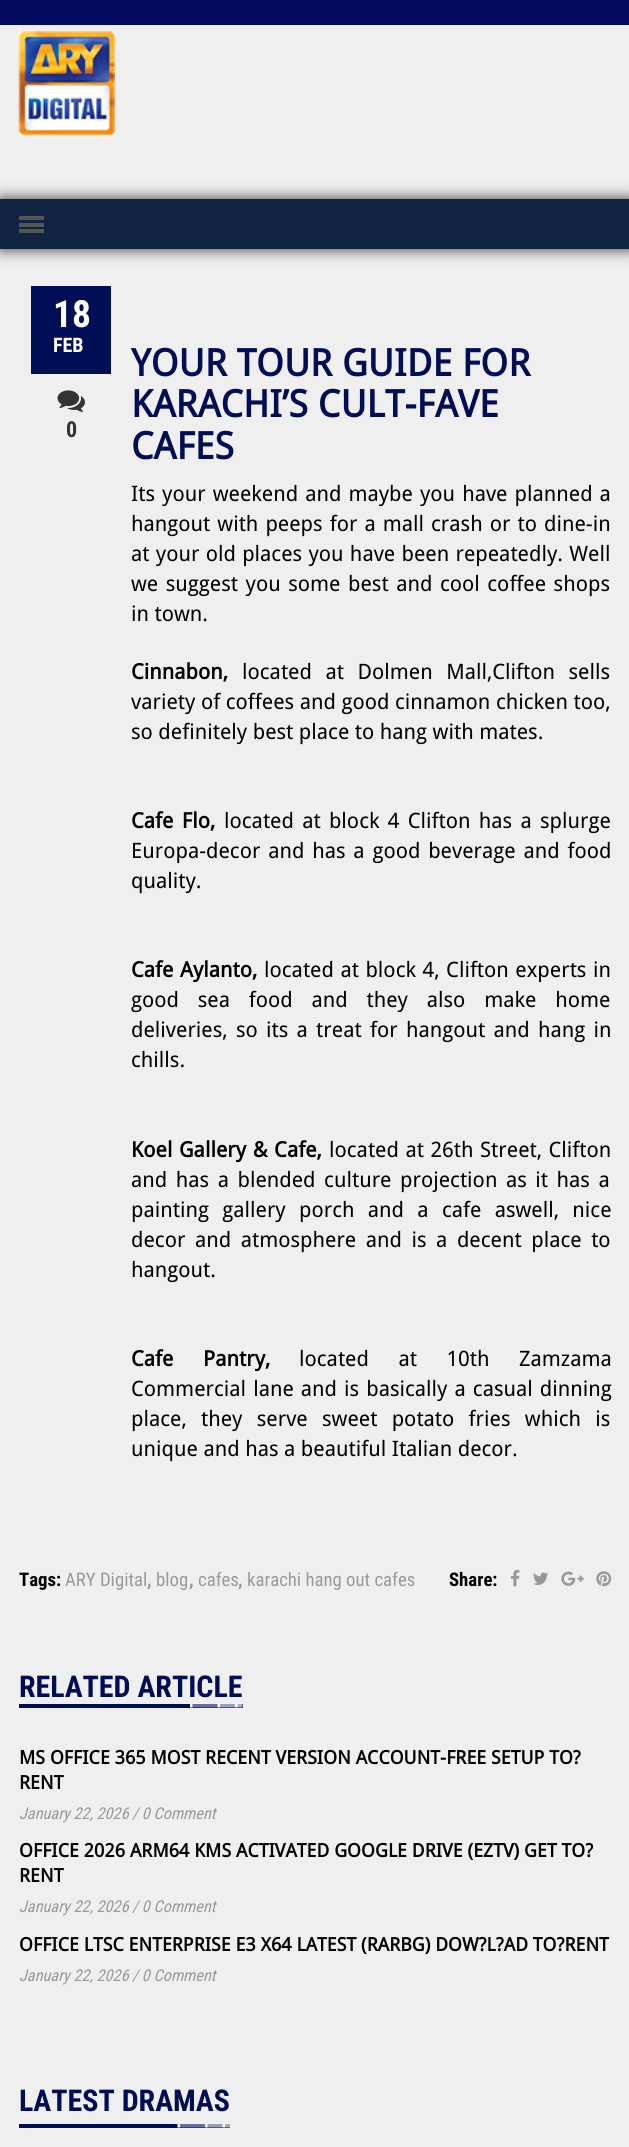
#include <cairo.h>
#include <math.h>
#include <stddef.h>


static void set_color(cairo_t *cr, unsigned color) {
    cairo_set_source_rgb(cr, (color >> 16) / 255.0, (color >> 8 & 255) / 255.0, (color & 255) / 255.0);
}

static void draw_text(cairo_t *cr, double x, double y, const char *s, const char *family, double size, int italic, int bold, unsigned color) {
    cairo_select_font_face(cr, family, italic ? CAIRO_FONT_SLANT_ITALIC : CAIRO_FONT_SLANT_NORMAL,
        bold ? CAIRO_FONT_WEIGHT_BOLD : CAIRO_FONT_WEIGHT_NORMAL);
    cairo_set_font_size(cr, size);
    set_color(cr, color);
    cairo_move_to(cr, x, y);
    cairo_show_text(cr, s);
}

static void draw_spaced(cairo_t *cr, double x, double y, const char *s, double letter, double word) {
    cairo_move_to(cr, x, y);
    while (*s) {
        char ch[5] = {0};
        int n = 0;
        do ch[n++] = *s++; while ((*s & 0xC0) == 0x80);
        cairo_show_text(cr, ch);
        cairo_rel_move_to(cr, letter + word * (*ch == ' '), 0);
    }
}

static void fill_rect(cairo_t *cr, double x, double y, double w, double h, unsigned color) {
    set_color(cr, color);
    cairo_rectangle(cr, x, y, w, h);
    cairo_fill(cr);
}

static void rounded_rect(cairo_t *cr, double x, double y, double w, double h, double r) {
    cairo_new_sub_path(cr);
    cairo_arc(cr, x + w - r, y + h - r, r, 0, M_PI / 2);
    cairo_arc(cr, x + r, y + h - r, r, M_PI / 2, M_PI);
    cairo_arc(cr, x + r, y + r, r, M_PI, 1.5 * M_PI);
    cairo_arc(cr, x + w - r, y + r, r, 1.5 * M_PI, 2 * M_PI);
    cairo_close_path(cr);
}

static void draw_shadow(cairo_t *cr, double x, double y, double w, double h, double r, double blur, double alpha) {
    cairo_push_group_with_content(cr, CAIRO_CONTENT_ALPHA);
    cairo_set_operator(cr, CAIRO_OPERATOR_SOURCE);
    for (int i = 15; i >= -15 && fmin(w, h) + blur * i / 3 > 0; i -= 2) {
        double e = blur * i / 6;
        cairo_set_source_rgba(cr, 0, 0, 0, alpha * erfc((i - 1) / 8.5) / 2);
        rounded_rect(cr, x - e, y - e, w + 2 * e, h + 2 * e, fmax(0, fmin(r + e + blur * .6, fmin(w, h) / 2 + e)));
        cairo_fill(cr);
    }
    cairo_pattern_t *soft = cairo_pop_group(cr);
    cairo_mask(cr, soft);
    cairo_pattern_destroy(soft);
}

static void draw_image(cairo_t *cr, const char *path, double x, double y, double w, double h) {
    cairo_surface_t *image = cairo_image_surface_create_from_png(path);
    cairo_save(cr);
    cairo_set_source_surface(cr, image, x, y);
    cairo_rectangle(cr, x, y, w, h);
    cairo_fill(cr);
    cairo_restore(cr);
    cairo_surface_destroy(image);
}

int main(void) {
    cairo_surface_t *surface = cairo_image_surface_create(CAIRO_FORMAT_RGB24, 629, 2147);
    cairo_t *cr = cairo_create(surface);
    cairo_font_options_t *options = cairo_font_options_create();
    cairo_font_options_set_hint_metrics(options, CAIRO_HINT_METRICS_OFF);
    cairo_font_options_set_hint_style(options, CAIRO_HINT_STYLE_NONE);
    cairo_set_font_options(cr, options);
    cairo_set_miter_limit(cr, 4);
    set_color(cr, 0xEFEFEF);
    cairo_paint(cr);
    fill_rect(cr, 0, 0, 629, 25, 0x030A5F);
    draw_image(cr, "assets/img1.png", 18, 31, 97, 106);
    set_color(cr, 0x333333);
    draw_shadow(cr, 1, 199, 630, 50, 0, 7.5, 1);
    fill_rect(cr, 0, 199, 629, 50, 0x112442);
    fill_rect(cr, 19, 223, 25, 4, 0x555555);
    fill_rect(cr, 19, 216, 25, 4, 0x555555);
    fill_rect(cr, 19, 229, 25, 4, 0x555555);
    fill_rect(cr, 31, 286, 80, 88, 0x000E56);
    draw_text(cr, 53, 327, "18", "Roboto Condensed", 37.5, 0, 1, 0xFFFFFF);
    draw_text(cr, 53, 352, "FEB", "Roboto Condensed", 20, 0, 1, 0xFFFFFF);
    draw_image(cr, "assets/img2.png", 57, 390, 28, 22);
    draw_text(cr, 66, 437, "0", "Roboto Condensed", 22, 0, 1, 0x333333);
    draw_text(cr, 131, 376, "YOUR TOUR GUIDE FOR", "Droid Sans", 37.5, 0, 1, 0x000E56);
    draw_text(cr, 131, 417, "KARACHI’S CULT-FAVE", "Droid Sans", 37.5, 0, 1, 0x000E56);
    draw_text(cr, 131, 459, "CAFES", "Droid Sans", 37.5, 0, 1, 0x000E56);
    cairo_select_font_face(cr, "Droid Sans", CAIRO_FONT_SLANT_NORMAL, CAIRO_FONT_WEIGHT_NORMAL);
    cairo_set_font_size(cr, 21.25);
    set_color(cr, 0x000000);
    draw_spaced(cr, 131, 501, "Its your weekend and maybe you have planned a", 0, 1.5);
    draw_spaced(cr, 131, 531, "hangout with peeps for a mall crash or to dine-in", 0, 1.5);
    draw_spaced(cr, 131, 561, "at your old places you have been repeatedly. Well", 0, 0.75);
    draw_spaced(cr, 131, 591, "we suggest you some best and cool coffee shops", 0, 2);
    draw_text(cr, 131, 621, "in town.", "Droid Sans", 21.25, 0, 0, 0x000000);
    draw_text(cr, 131, 679, "Cinnabon,", "Droid Sans", 21.25, 0, 1, 0x000000);
    cairo_select_font_face(cr, "Droid Sans", CAIRO_FONT_SLANT_NORMAL, CAIRO_FONT_WEIGHT_NORMAL);
    draw_spaced(cr, 242, 679, "located at Dolmen Mall,Clifton sells", 0, 8);
    draw_text(cr, 131, 709, "variety of coffees and good cinnamon chicken too,", "Droid Sans", 21.25, 0, 0, 0x000000);
    draw_text(cr, 131, 739, "so definitely best place to hang with mates.", "Droid Sans", 21.25, 0, 0, 0x000000);
    cairo_select_font_face(cr, "Droid Sans", CAIRO_FONT_SLANT_NORMAL, CAIRO_FONT_WEIGHT_BOLD);
    draw_spaced(cr, 131, 828, "Cafe Flo,", 0, 2.75);
    cairo_select_font_face(cr, "Droid Sans", CAIRO_FONT_SLANT_NORMAL, CAIRO_FONT_WEIGHT_NORMAL);
    draw_spaced(cr, 224, 828, "located at block 4 Clifton has a splurge", 0, 2.75);
    draw_spaced(cr, 131, 858, "Europa-decor and has a good beverage and food", 0, 2.25);
    draw_text(cr, 131, 888, "quality.", "Droid Sans", 21.25, 0, 0, 0x000000);
    cairo_select_font_face(cr, "Droid Sans", CAIRO_FONT_SLANT_NORMAL, CAIRO_FONT_WEIGHT_BOLD);
    draw_spaced(cr, 131, 977, "Cafe Aylanto,", 0, 1);
    cairo_select_font_face(cr, "Droid Sans", CAIRO_FONT_SLANT_NORMAL, CAIRO_FONT_WEIGHT_NORMAL);
    draw_spaced(cr, 264, 977, "located at block 4, Clifton experts in", 0, 1);
    draw_spaced(cr, 131, 1007, "good sea food and they also make home", 0, 13.25);
    draw_spaced(cr, 131, 1037, "deliveries, so its a treat for hangout and hang in", 0, 2.75);
    draw_text(cr, 131, 1067, "chills.", "Droid Sans", 21.25, 0, 0, 0x000000);
    cairo_select_font_face(cr, "Droid Sans", CAIRO_FONT_SLANT_NORMAL, CAIRO_FONT_WEIGHT_BOLD);
    draw_spaced(cr, 131, 1157, "Koel Gallery & Cafe,", 0, 1);
    cairo_select_font_face(cr, "Droid Sans", CAIRO_FONT_SLANT_NORMAL, CAIRO_FONT_WEIGHT_NORMAL);
    draw_spaced(cr, 329, 1157, "located at 26th Street, Clifton", 0, 1);
    draw_spaced(cr, 131, 1187, "and has a blended culture projection as it has a", 0, 3);
    draw_spaced(cr, 131, 1217, "painting gallery porch and a cafe aswell, nice", 0, 7.75);
    draw_spaced(cr, 131, 1247, "decor and atmosphere and is a decent place to", 0, 4);
    draw_text(cr, 131, 1277, "hangout.", "Droid Sans", 21.25, 0, 0, 0x000000);
    cairo_select_font_face(cr, "Droid Sans", CAIRO_FONT_SLANT_NORMAL, CAIRO_FONT_WEIGHT_BOLD);
    draw_spaced(cr, 131, 1366, "Cafe Pantry,", 0, 24);
    cairo_select_font_face(cr, "Droid Sans", CAIRO_FONT_SLANT_NORMAL, CAIRO_FONT_WEIGHT_NORMAL);
    draw_spaced(cr, 299, 1366, "located at 10th Zamzama", 0, 24);
    draw_spaced(cr, 131, 1396, "Commercial lane and is basically a casual dinning", 0, 1.5);
    draw_spaced(cr, 131, 1426, "place, they serve sweet potato fries which is", 0, 8.75);
    draw_text(cr, 131, 1456, "unique and has a beautiful Italian decor.", "Droid Sans", 21.25, 0, 0, 0x000000);
    draw_text(cr, 19, 1586, "Tags:", "Roboto Condensed", 18.75, 0, 1, 0x000000);
    draw_text(cr, 65, 1586, "ARY Digital", "Roboto Condensed", 18.75, 0, 0, 0x999999);
    draw_text(cr, 147, 1586, ",", "Roboto Condensed", 18.75, 0, 1, 0x999999);
    draw_text(cr, 156, 1586, "blog", "Roboto Condensed", 18.75, 0, 0, 0x999999);
    draw_text(cr, 189, 1586, ",", "Roboto Condensed", 18.75, 0, 1, 0x999999);
    draw_text(cr, 198, 1586, "cafes", "Roboto Condensed", 18.75, 0, 0, 0x999999);
    draw_text(cr, 238, 1586, ",", "Roboto Condensed", 18.75, 0, 1, 0x999999);
    draw_text(cr, 247, 1586, "karachi hang out cafes", "Roboto Condensed", 18.75, 0, 0, 0x999999);
    draw_text(cr, 449, 1586, "Share:", "Roboto Condensed", 18.75, 0, 1, 0x000000);
    draw_image(cr, "assets/img3.png", 510, 1570, 10, 17);
    draw_image(cr, "assets/img4.png", 533, 1572, 16, 13);
    draw_image(cr, "assets/img5.png", 561, 1571, 23, 15);
    draw_image(cr, "assets/img6.png", 596, 1571, 16, 16);
    fill_rect(cr, 19, 1704, 224, 4, 0x000E56);
    draw_text(cr, 19, 1697, "RELATED ARTICLE", "Roboto Condensed", 30, 0, 1, 0x000E56);
    draw_image(cr, "assets/img7.png", 190, 1703, 53, 5);
    draw_text(cr, 19, 1764, "MS OFFICE 365 MOST RECENT VERSION ACCOUNT-FREE SETUP TO?", "Droid Sans", 18.75, 0, 1, 0x000000);
    draw_text(cr, 19, 1789, "RENT", "Droid Sans", 18.75, 0, 1, 0x000000);
    draw_text(cr, 19, 1819, "January 22, 2026", "Roboto Condensed", 16.25, 1, 0, 0x999999);
    draw_text(cr, 132, 1819, "/ 0 Comment", "Roboto Condensed", 16.25, 1, 0, 0x999999);
    draw_text(cr, 19, 1857, "OFFICE 2026 ARM64 KMS ACTIVATED GOOGLE DRIVE (EZTV) GET TO?", "Droid Sans", 18.75, 0, 1, 0x000000);
    draw_text(cr, 19, 1882, "RENT", "Droid Sans", 18.75, 0, 1, 0x000000);
    draw_text(cr, 19, 1912, "January 22, 2026", "Roboto Condensed", 16.25, 1, 0, 0x999999);
    draw_text(cr, 132, 1912, "/ 0 Comment", "Roboto Condensed", 16.25, 1, 0, 0x999999);
    draw_text(cr, 19, 1951, "OFFICE LTSC ENTERPRISE E3 X64 LATEST (RARBG) DOW?L?AD TO?RENT", "Droid Sans", 18.75, 0, 1, 0x000000);
    draw_text(cr, 19, 1981, "January 22, 2026", "Roboto Condensed", 16.25, 1, 0, 0x999999);
    draw_text(cr, 132, 1981, "/ 0 Comment", "Roboto Condensed", 16.25, 1, 0, 0x999999);
    fill_rect(cr, 19, 2124, 211, 4, 0x000E56);
    draw_text(cr, 19, 2111, "LATEST DRAMAS", "Roboto Condensed", 30, 0, 1, 0x000E56);
    draw_image(cr, "assets/img8.png", 177, 2123, 53, 5);
    cairo_surface_write_to_png(surface, "output.png");
    cairo_font_options_destroy(options);
    cairo_destroy(cr);
    cairo_surface_destroy(surface);
    return 0;
}
